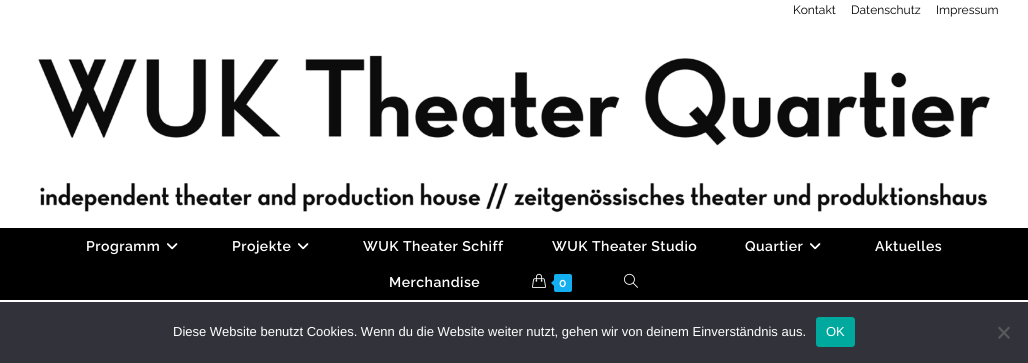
#include <cairo.h>
#include <math.h>
#include <stddef.h>


static void set_color(cairo_t *cr, unsigned color) {
    cairo_set_source_rgb(cr, (color >> 16) / 255.0, (color >> 8 & 255) / 255.0, (color & 255) / 255.0);
}

static void draw_text(cairo_t *cr, double x, double y, const char *s, const char *family, double size, int italic, int bold, unsigned color) {
    cairo_select_font_face(cr, family, italic ? CAIRO_FONT_SLANT_ITALIC : CAIRO_FONT_SLANT_NORMAL,
        bold ? CAIRO_FONT_WEIGHT_BOLD : CAIRO_FONT_WEIGHT_NORMAL);
    cairo_set_font_size(cr, size);
    set_color(cr, color);
    cairo_move_to(cr, x, y);
    cairo_show_text(cr, s);
}

static void draw_spaced(cairo_t *cr, double x, double y, const char *s, double letter, double word) {
    cairo_move_to(cr, x, y);
    while (*s) {
        char ch[5] = {0};
        int n = 0;
        do ch[n++] = *s++; while ((*s & 0xC0) == 0x80);
        cairo_show_text(cr, ch);
        cairo_rel_move_to(cr, letter + word * (*ch == ' '), 0);
    }
}

static void fill_rect(cairo_t *cr, double x, double y, double w, double h, unsigned color) {
    set_color(cr, color);
    cairo_rectangle(cr, x, y, w, h);
    cairo_fill(cr);
}

static void rounded_rect(cairo_t *cr, double x, double y, double w, double h, double r) {
    cairo_new_sub_path(cr);
    cairo_arc(cr, x + w - r, y + h - r, r, 0, M_PI / 2);
    cairo_arc(cr, x + r, y + h - r, r, M_PI / 2, M_PI);
    cairo_arc(cr, x + r, y + r, r, M_PI, 1.5 * M_PI);
    cairo_arc(cr, x + w - r, y + r, r, 1.5 * M_PI, 2 * M_PI);
    cairo_close_path(cr);
}

static void draw_image(cairo_t *cr, const char *path, double x, double y, double w, double h) {
    cairo_surface_t *image = cairo_image_surface_create_from_png(path);
    cairo_save(cr);
    cairo_set_source_surface(cr, image, x, y);
    cairo_rectangle(cr, x, y, w, h);
    cairo_fill(cr);
    cairo_restore(cr);
    cairo_surface_destroy(image);
}

int main(void) {
    cairo_surface_t *surface = cairo_image_surface_create(CAIRO_FORMAT_RGB24, 1028, 363);
    cairo_t *cr = cairo_create(surface);
    cairo_font_options_t *options = cairo_font_options_create();
    cairo_font_options_set_hint_metrics(options, CAIRO_HINT_METRICS_OFF);
    cairo_font_options_set_hint_style(options, CAIRO_HINT_STYLE_NONE);
    cairo_set_font_options(cr, options);
    cairo_set_miter_limit(cr, 4);
    set_color(cr, 0xFFFFFF);
    cairo_paint(cr);
    draw_text(cr, 793, 14, "Kontakt", "Raleway", 12, 0, 0, 0x000000);
    draw_text(cr, 851, 14, "Datenschutz", "Raleway", 12, 0, 0, 0x000000);
    draw_text(cr, 936, 14, "Impressum", "Raleway", 12, 0, 0, 0x000000);
    draw_image(cr, "assets/img1.png", 38, 55, 953, 158);
    fill_rect(cr, 0, 228, 1028, 72, 0x000000);
    cairo_select_font_face(cr, "Raleway SemiBold", CAIRO_FONT_SLANT_NORMAL, CAIRO_FONT_WEIGHT_NORMAL);
    cairo_set_font_size(cr, 14);
    set_color(cr, 0xFFFFFF);
    draw_spaced(cr, 86, 251, "Programm", 0.5, 0);
    draw_image(cr, "assets/img2.png", 167, 243, 11, 7);
    draw_spaced(cr, 232, 251, "Projekte", 0.5, 0);
    draw_image(cr, "assets/img2.png", 298, 243, 11, 7);
    draw_spaced(cr, 363, 251, "WUK Theater Schiff", 0.5, 0);
    draw_spaced(cr, 552, 251, "WUK Theater Studio", 0.5, 0);
    draw_spaced(cr, 745, 251, "Quartier", 0.5, 0);
    draw_image(cr, "assets/img2.png", 810, 243, 11, 7);
    draw_spaced(cr, 875, 251, "Aktuelles", 0.5, 0);
    draw_spaced(cr, 389, 287, "Merchandise", 0.5, 0);
    draw_image(cr, "assets/img3.png", 532, 273, 14, 15);
    set_color(cr, 0x13AFF0);
    rounded_rect(cr, 554, 274, 18, 18, 2);
    cairo_fill(cr);
    cairo_new_path(cr);
    cairo_move_to(cr, 556, 278);
    cairo_line_to(cr, 556, 288);
    cairo_line_to(cr, 551, 283);
    cairo_close_path(cr);
    cairo_fill(cr);
    cairo_set_font_size(cr, 12);
    set_color(cr, 0xFFFFFF);
    draw_spaced(cr, 559, 287, "0", 0.5, 0);
    draw_image(cr, "assets/img4.png", 624, 273, 14, 15);
    fill_rect(cr, 0, 302, 1028, 61, 0x32323A);
    draw_text(cr, 173, 336, "Diese Website benutzt Cookies. Wenn du die Website weiter nutzt, gehen wir von deinem Einverständnis aus.", "Liberation Sans", 13, 0, 0, 0xFFFFFF);
    set_color(cr, 0x00A99D);
    rounded_rect(cr, 816, 317, 39, 30, 3);
    cairo_fill(cr);
    draw_text(cr, 826, 336, "OK", "Liberation Sans", 13, 0, 0, 0xFFFFFF);
    set_color(cr, 0x59595D);
    cairo_new_path(cr);
    cairo_move_to(cr, 1008.5, 326.5);
    cairo_line_to(cr, 1010, 328);
    cairo_line_to(cr, 999.5, 339);
    cairo_line_to(cr, 998, 337.5);
    cairo_close_path(cr);
    cairo_fill(cr);
    cairo_new_path(cr);
    cairo_move_to(cr, 998, 328);
    cairo_line_to(cr, 999.5, 326.5);
    cairo_line_to(cr, 1010, 337.5);
    cairo_line_to(cr, 1008.5, 339);
    cairo_close_path(cr);
    cairo_fill(cr);
    cairo_surface_write_to_png(surface, "output.png");
    cairo_font_options_destroy(options);
    cairo_destroy(cr);
    cairo_surface_destroy(surface);
    return 0;
}
